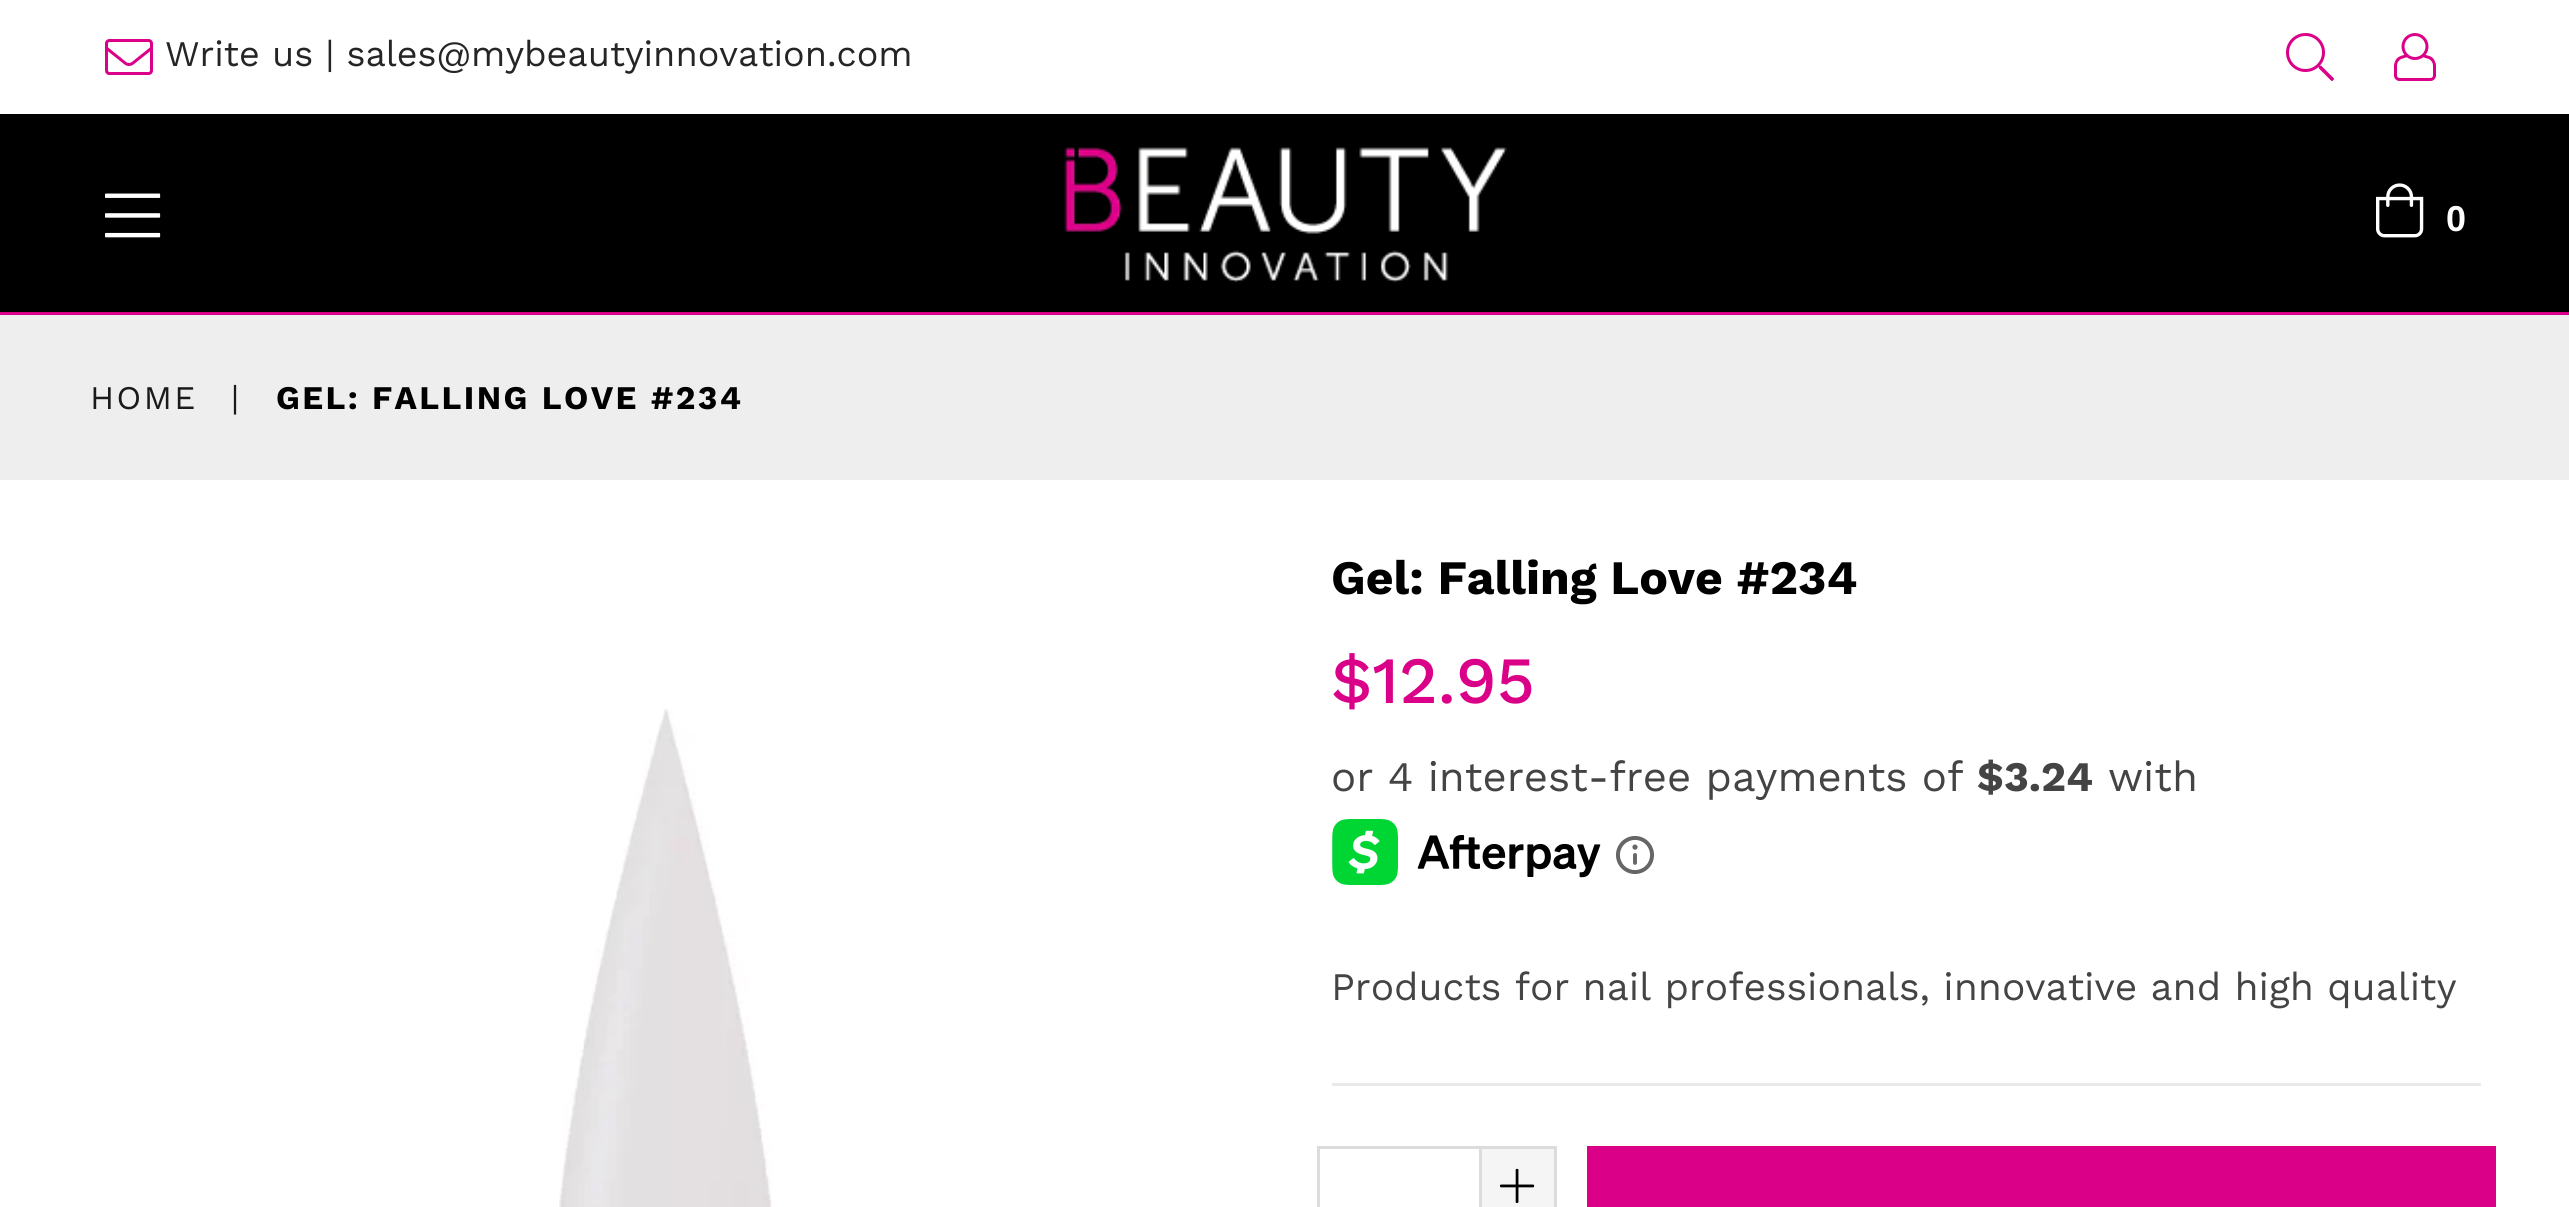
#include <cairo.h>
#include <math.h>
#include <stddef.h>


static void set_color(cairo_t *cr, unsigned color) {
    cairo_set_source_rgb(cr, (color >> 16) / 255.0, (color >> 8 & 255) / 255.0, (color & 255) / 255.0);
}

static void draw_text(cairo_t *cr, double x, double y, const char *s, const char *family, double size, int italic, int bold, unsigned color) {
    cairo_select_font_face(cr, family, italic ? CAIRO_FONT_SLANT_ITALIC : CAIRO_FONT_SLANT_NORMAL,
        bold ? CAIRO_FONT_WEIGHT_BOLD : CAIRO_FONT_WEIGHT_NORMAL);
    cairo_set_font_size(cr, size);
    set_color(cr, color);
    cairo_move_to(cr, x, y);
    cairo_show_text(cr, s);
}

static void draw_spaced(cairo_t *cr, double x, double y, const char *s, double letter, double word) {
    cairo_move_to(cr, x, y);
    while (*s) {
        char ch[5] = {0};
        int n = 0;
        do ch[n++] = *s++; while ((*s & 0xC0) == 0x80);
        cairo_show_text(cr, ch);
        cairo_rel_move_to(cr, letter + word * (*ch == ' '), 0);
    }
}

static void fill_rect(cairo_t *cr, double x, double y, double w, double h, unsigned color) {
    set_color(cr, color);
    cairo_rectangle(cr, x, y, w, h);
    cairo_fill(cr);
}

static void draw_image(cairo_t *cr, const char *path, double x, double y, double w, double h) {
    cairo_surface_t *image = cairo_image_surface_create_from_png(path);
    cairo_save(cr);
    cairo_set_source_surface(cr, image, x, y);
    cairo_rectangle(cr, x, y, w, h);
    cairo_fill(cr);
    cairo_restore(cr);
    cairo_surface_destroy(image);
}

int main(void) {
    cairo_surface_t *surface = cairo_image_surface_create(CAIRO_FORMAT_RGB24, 2569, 1207);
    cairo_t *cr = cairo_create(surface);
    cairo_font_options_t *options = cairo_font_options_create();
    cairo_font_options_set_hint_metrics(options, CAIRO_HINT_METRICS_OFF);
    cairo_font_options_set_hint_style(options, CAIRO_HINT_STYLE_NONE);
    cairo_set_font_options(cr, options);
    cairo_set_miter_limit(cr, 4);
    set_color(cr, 0xFFFFFF);
    cairo_paint(cr);
    draw_image(cr, "assets/img1.png", 105, 39, 48, 36);
    draw_text(cr, 165, 66, "Write us | sales@mybeautyinnovation.com", "Work Sans", 36, 0, 0, 0x252525);
    draw_image(cr, "assets/img2.png", 2286, 33, 48, 48);
    draw_image(cr, "assets/img3.png", 2394, 33, 42, 48);
    fill_rect(cr, 0, 114, 2569, 198, 0x000000);
    fill_rect(cr, 0, 312, 2569, 3, 0xDB0088);
    draw_image(cr, "assets/img4.png", 105, 193, 56, 45);
    draw_image(cr, "assets/img5.png", 1064, 147, 443, 135);
    draw_image(cr, "assets/img6.png", 2376, 183, 48, 55);
    draw_text(cr, 2446, 231, "0", "Liberation Sans", 36, 0, 1, 0xFFFFFF);
    fill_rect(cr, 0, 315, 2569, 165, 0xEEEEEE);
    cairo_select_font_face(cr, "Work Sans", CAIRO_FONT_SLANT_NORMAL, CAIRO_FONT_WEIGHT_NORMAL);
    cairo_set_font_size(cr, 33);
    set_color(cr, 0x1A1A1A);
    draw_spaced(cr, 90, 409, "HOME", 2.4, 0);
    draw_spaced(cr, 231, 409, "|", 2.4, 0);
    cairo_select_font_face(cr, "Work Sans", CAIRO_FONT_SLANT_NORMAL, CAIRO_FONT_WEIGHT_BOLD);
    set_color(cr, 0x000000);
    draw_spaced(cr, 276, 409, "GEL: FALLING LOVE #234", 2.4, 0);
    draw_image(cr, "assets/img7.png", 559, 708, 213, 499);
    draw_text(cr, 1331, 594, "Gel: Falling Love #234", "Work Sans", 48, 0, 1, 0x000000);
    draw_text(cr, 1331, 703, "$12.95", "Work Sans Medium", 66, 0, 0, 0xDB0088);
    draw_text(cr, 1331, 791, "or 4 interest-free payments of", "Work Sans", 42, 0, 0, 0x444444);
    draw_text(cr, 1977, 791, "$3.24", "Work Sans", 42, 0, 1, 0x444444);
    draw_text(cr, 2108, 791, "with", "Work Sans", 42, 0, 0, 0x444444);
    draw_image(cr, "assets/img8.png", 1332, 819, 269, 66);
    draw_image(cr, "assets/img9.png", 1616, 836, 38, 38);
    draw_text(cr, 1331, 1000, "Products for nail professionals, innovative and high quality", "Work Sans", 39, 0, 0, 0x444444);
    fill_rect(cr, 1332, 1083, 1149, 3, 0xE8E9EB);
    cairo_rectangle(cr, 1318.5, 1147.5, 237, 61);
    set_color(cr, 0xDCDCDC);
    cairo_set_line_width(cr, 3);
    cairo_stroke(cr);
    fill_rect(cr, 1482, 1149, 72, 58, 0xF5F5F5);
    fill_rect(cr, 1479, 1149, 3, 58, 0xDCDCDC);
    draw_image(cr, "assets/img10.png", 1500, 1168, 35, 35);
    fill_rect(cr, 1587, 1146, 909, 61, 0xDB0088);
    cairo_surface_write_to_png(surface, "output.png");
    cairo_font_options_destroy(options);
    cairo_destroy(cr);
    cairo_surface_destroy(surface);
    return 0;
}
